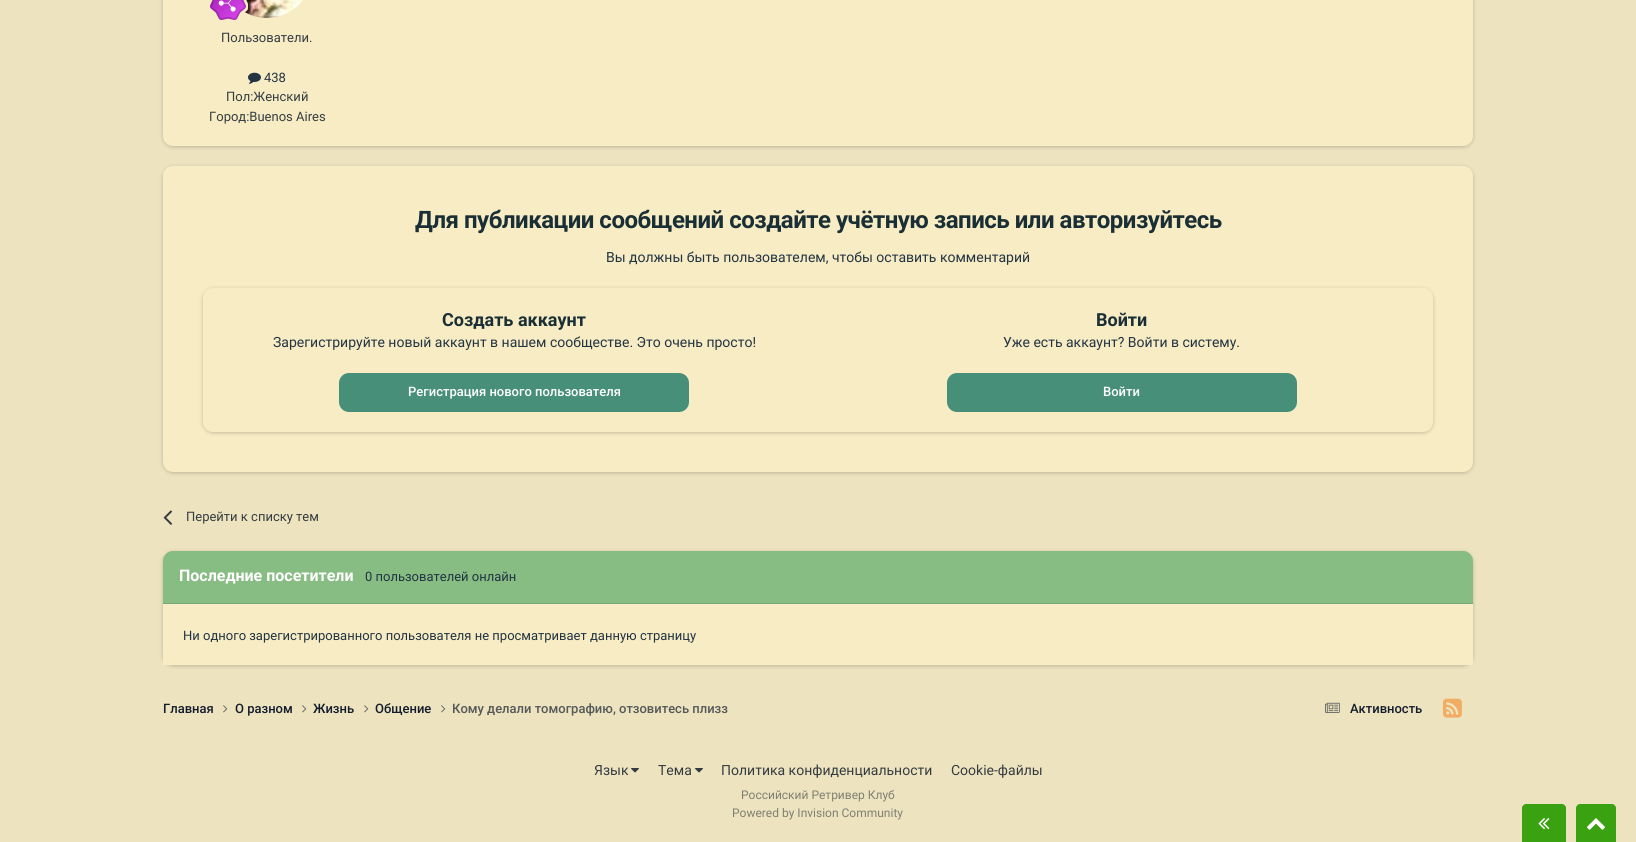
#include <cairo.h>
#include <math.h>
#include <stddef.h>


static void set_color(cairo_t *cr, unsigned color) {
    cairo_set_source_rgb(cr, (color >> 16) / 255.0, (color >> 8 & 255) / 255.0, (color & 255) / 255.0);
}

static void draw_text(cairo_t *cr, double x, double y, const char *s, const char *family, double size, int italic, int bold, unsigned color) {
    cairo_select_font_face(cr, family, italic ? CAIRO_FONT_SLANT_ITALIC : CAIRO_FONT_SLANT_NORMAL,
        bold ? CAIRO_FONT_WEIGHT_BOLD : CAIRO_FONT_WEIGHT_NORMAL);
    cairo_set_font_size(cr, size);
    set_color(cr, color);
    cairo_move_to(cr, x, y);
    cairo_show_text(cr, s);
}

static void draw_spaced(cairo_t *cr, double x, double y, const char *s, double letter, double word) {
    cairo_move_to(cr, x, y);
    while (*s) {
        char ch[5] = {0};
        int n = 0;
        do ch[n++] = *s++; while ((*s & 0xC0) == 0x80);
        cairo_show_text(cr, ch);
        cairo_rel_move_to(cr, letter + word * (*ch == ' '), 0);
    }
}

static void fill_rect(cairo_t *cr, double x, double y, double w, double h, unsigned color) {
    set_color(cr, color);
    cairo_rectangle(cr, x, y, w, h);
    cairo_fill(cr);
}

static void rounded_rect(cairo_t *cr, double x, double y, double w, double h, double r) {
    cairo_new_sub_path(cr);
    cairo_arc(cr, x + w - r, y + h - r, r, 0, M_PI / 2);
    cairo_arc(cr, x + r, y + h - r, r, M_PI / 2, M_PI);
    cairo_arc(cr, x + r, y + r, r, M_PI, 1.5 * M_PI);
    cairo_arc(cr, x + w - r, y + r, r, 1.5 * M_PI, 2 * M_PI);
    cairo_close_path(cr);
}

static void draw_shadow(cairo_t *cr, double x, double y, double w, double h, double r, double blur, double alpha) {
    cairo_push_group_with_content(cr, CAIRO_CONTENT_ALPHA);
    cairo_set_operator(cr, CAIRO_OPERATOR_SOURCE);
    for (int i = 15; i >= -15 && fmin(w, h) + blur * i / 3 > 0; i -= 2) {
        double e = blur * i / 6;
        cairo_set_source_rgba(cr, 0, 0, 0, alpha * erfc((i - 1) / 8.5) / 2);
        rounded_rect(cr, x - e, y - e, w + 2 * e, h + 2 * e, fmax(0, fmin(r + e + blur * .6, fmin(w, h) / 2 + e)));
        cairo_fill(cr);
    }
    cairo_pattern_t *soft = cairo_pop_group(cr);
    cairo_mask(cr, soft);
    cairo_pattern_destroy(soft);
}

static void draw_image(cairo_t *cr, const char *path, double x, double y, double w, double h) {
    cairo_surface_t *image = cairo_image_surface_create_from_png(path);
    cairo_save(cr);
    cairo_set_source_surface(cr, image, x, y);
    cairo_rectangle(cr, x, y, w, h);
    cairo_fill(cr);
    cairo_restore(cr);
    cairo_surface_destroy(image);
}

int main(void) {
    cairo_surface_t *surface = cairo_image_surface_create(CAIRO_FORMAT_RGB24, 1636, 842);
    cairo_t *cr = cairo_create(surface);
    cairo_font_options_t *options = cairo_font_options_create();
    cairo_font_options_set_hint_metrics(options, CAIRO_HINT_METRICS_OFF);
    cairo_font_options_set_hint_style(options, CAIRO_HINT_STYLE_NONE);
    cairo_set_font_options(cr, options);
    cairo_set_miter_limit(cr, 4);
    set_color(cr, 0xEDE3BF);
    cairo_paint(cr);
    set_color(cr, 0x000000);
    draw_shadow(cr, 164, -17, 1308, 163, 9, 2.5, 0.3);
    set_color(cr, 0xF7ECC4);
    rounded_rect(cr, 163, -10, 1310, 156, 10);
    cairo_fill(cr);
    draw_image(cr, "assets/img2.png", 245, 0, 58, 18);
    draw_image(cr, "assets/img1.png", 210, 0, 38, 20);
    draw_text(cr, 221, 42, "Пользователи.", "Roboto", 13, 0, 0, 0x353C41);
    draw_image(cr, "assets/img3.png", 248, 72, 13, 12);
    draw_text(cr, 264, 82, "438", "Roboto", 13, 0, 0, 0x223442);
    draw_text(cr, 226, 101, "Пол:Женский", "Roboto", 13, 0, 0, 0x353C41);
    draw_text(cr, 209, 121, "Город:Buenos Aires", "Roboto", 13, 0, 0, 0x353C41);
    set_color(cr, 0x000000);
    draw_shadow(cr, 164, 168, 1308, 304, 9, 2.5, 0.3);
    set_color(cr, 0xF7ECC4);
    rounded_rect(cr, 163, 166, 1310, 306, 10);
    cairo_fill(cr);
    cairo_select_font_face(cr, "Roboto", CAIRO_FONT_SLANT_NORMAL, CAIRO_FONT_WEIGHT_BOLD);
    cairo_set_font_size(cr, 24);
    set_color(cr, 0x192F35);
    draw_spaced(cr, 415, 228, "Для публикации сообщений создайте учётную запись или авторизуйтесь", -0.48, 0);
    draw_text(cr, 606, 262, "Вы должны быть пользователем, чтобы оставить комментарий", "Roboto", 14, 0, 0, 0x223442);
    set_color(cr, 0x000000);
    draw_shadow(cr, 204, 290, 1228, 142, 9, 2.5, 0.3);
    set_color(cr, 0xF7ECC4);
    rounded_rect(cr, 203, 288, 1230, 144, 10);
    cairo_fill(cr);
    draw_text(cr, 442, 326, "Создать аккаунт", "Roboto", 18, 0, 1, 0x192F35);
    draw_text(cr, 273, 347, "Зарегистрируйте новый аккаунт в нашем сообществе. Это очень просто!", "Roboto", 14, 0, 0, 0x223442);
    set_color(cr, 0x478F79);
    rounded_rect(cr, 339, 373, 350, 39, 10);
    cairo_fill(cr);
    draw_text(cr, 408, 396, "Регистрация нового пользователя", "Roboto Medium", 13, 0, 0, 0xFFFFFF);
    draw_text(cr, 1096, 326, "Войти", "Roboto", 18, 0, 1, 0x192F35);
    draw_text(cr, 1003, 347, "Уже есть аккаунт? Войти в систему.", "Roboto", 14, 0, 0, 0x223442);
    set_color(cr, 0x478F79);
    rounded_rect(cr, 947, 373, 350, 39, 10);
    cairo_fill(cr);
    draw_text(cr, 1103, 396, "Войти", "Roboto Medium", 13, 0, 0, 0xFFFFFF);
    draw_image(cr, "assets/img4.png", 163, 510, 10, 15);
    draw_text(cr, 186, 521, "Перейти к списку тем", "Roboto", 13, 0, 0, 0x353C41);
    set_color(cr, 0x000000);
    draw_shadow(cr, 164, 553, 1308, 112, 9, 2.5, 0.3);
    set_color(cr, 0x87BC83);
    cairo_new_path(cr);
    cairo_move_to(cr, 173, 551);
    cairo_line_to(cr, 1463, 551);
    cairo_curve_to(cr, 1468.5, 551, 1473, 555.5, 1473, 561);
    cairo_line_to(cr, 1473, 604);
    cairo_line_to(cr, 163, 604);
    cairo_line_to(cr, 163, 561);
    cairo_curve_to(cr, 163, 555.5, 167.5, 551, 173, 551);
    cairo_close_path(cr);
    cairo_fill(cr);
    fill_rect(cr, 163, 603, 1310, 1, 0x78A879);
    draw_text(cr, 179, 581, "Последние посетители", "Roboto", 16, 0, 1, 0xFFFFFF);
    draw_text(cr, 365, 581, "0 пользователей онлайн", "Roboto", 13, 0, 0, 0x223442);
    fill_rect(cr, 163, 604, 1310, 61, 0xF7ECC4);
    draw_text(cr, 183, 640, "Ни одного зарегистрированного пользователя не просматривает данную страницу", "Roboto", 13, 0, 0, 0x223442);
    draw_text(cr, 163, 713, "Главная", "Roboto Medium", 13, 0, 0, 0x131C2D);
    draw_image(cr, "assets/img5.png", 223, 705, 5, 8);
    draw_text(cr, 235, 713, "О разном", "Roboto Medium", 13, 0, 0, 0x131C2D);
    draw_image(cr, "assets/img5.png", 302, 705, 5, 8);
    draw_text(cr, 313, 713, "Жизнь", "Roboto Medium", 13, 0, 0, 0x131C2D);
    draw_image(cr, "assets/img5.png", 364, 705, 5, 8);
    draw_text(cr, 375, 713, "Общение", "Roboto Medium", 13, 0, 0, 0x131C2D);
    draw_image(cr, "assets/img5.png", 441, 705, 5, 8);
    draw_text(cr, 452, 713, "Кому делали томографию, отзовитесь плизз", "Roboto Medium", 13, 0, 0, 0x545859);
    draw_image(cr, "assets/img6.png", 1325, 702, 15, 11);
    draw_text(cr, 1350, 713, "Активность", "Roboto Medium", 13, 0, 0, 0x131C2D);
    draw_image(cr, "assets/img7.png", 1443, 698, 19, 20);
    draw_text(cr, 594, 775, "Язык", "Roboto", 14, 0, 0, 0x353C41);
    draw_image(cr, "assets/img8.png", 631, 768, 8, 5);
    draw_text(cr, 658, 775, "Тема", "Roboto", 14, 0, 0, 0x353C41);
    draw_image(cr, "assets/img8.png", 695, 768, 8, 5);
    draw_text(cr, 721, 775, "Политика конфиденциальности", "Roboto", 14, 0, 0, 0x353C41);
    draw_text(cr, 951, 775, "Cookie-файлы", "Roboto", 14, 0, 0, 0x353C41);
    draw_text(cr, 741, 799, "Российский Ретривер Клуб", "Roboto", 12, 0, 0, 0x7F7F73);
    draw_text(cr, 732, 817, "Powered by Invision Community", "Roboto", 12, 0, 0, 0x7F7F73);
    set_color(cr, 0x3AA111);
    cairo_new_path(cr);
    cairo_move_to(cr, 1526, 804);
    cairo_line_to(cr, 1562, 804);
    cairo_curve_to(cr, 1564, 804, 1566, 806, 1566, 808);
    cairo_line_to(cr, 1566, 842);
    cairo_line_to(cr, 1522, 842);
    cairo_line_to(cr, 1522, 808);
    cairo_curve_to(cr, 1522, 806, 1524, 804, 1526, 804);
    cairo_close_path(cr);
    cairo_fill(cr);
    draw_image(cr, "assets/img9.png", 1538, 818, 12, 12);
    cairo_new_path(cr);
    cairo_move_to(cr, 1580, 804);
    cairo_line_to(cr, 1612, 804);
    cairo_curve_to(cr, 1614, 804, 1616, 806, 1616, 808);
    cairo_line_to(cr, 1616, 842);
    cairo_line_to(cr, 1576, 842);
    cairo_line_to(cr, 1576, 808);
    cairo_curve_to(cr, 1576, 806, 1578, 804, 1580, 804);
    cairo_close_path(cr);
    cairo_fill(cr);
    draw_image(cr, "assets/img10.png", 1587, 818, 18, 12);
    cairo_surface_write_to_png(surface, "output.png");
    cairo_font_options_destroy(options);
    cairo_destroy(cr);
    cairo_surface_destroy(surface);
    return 0;
}
